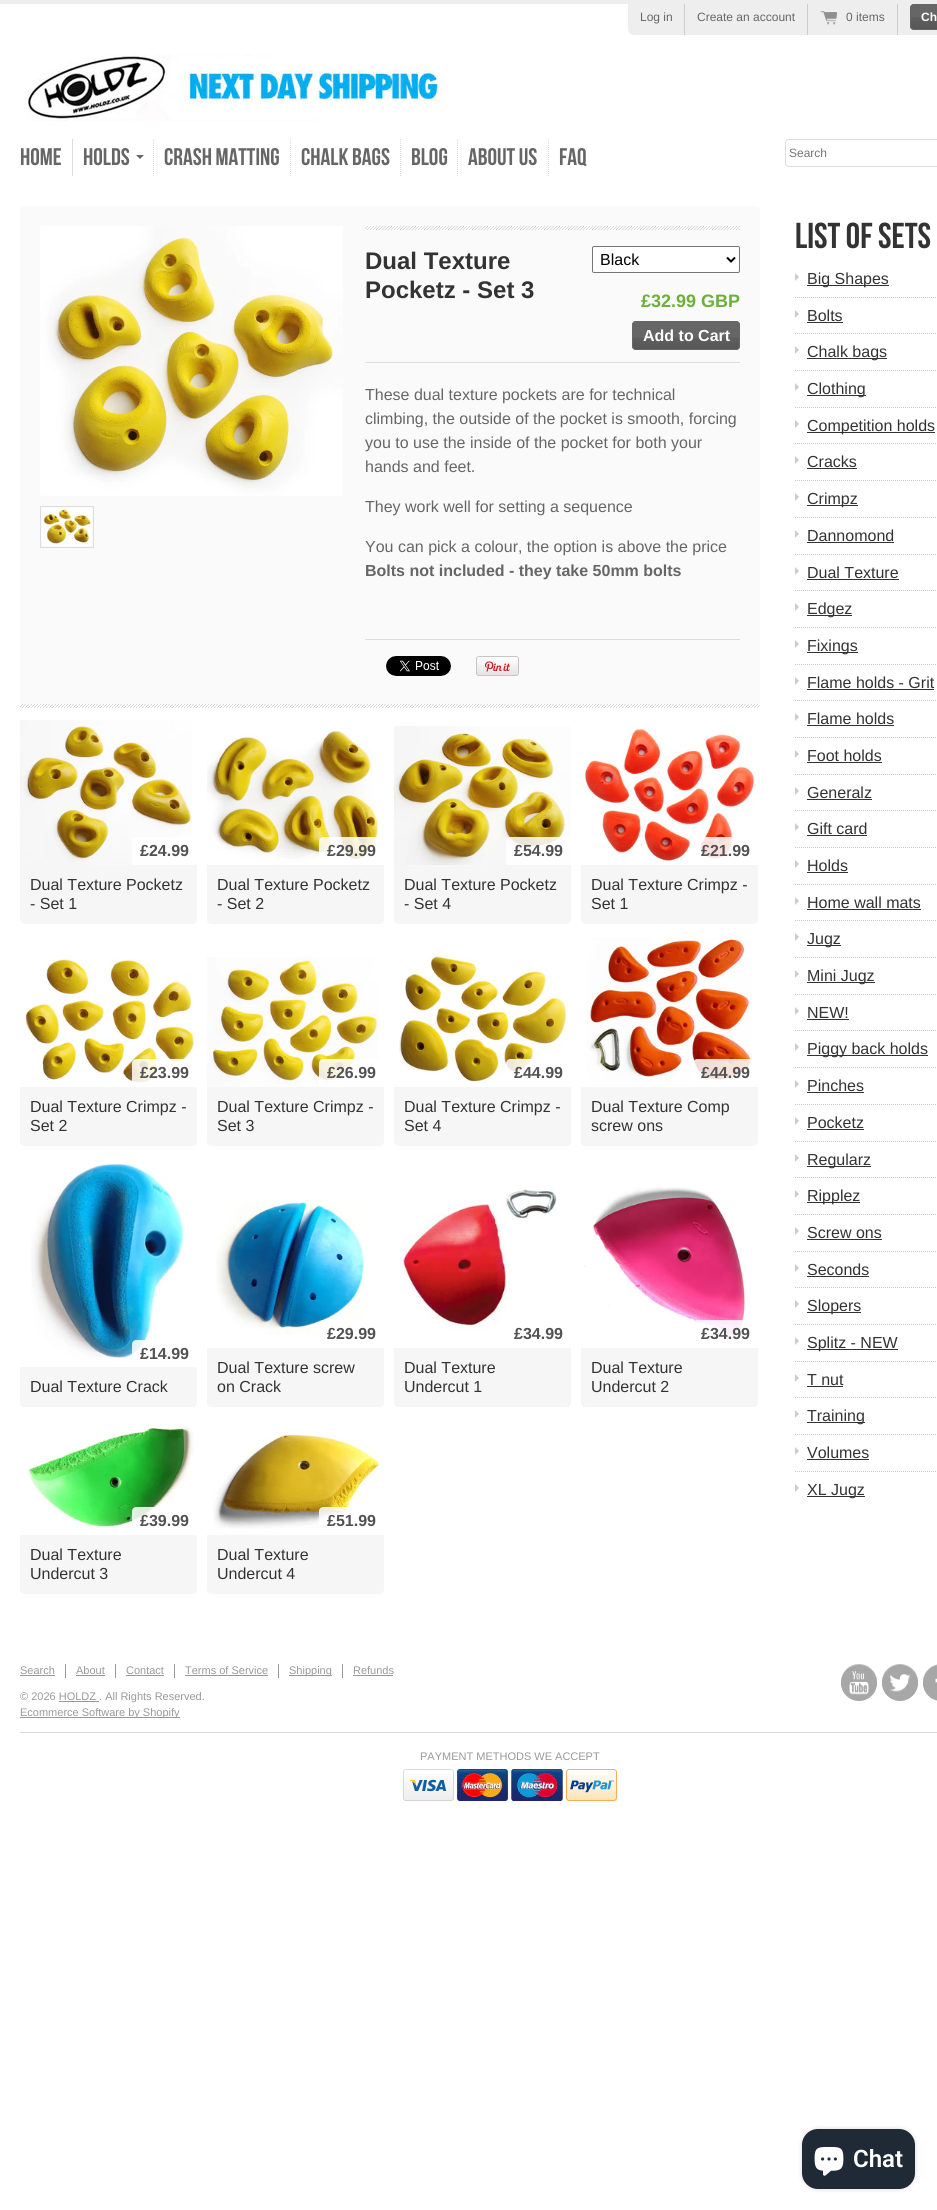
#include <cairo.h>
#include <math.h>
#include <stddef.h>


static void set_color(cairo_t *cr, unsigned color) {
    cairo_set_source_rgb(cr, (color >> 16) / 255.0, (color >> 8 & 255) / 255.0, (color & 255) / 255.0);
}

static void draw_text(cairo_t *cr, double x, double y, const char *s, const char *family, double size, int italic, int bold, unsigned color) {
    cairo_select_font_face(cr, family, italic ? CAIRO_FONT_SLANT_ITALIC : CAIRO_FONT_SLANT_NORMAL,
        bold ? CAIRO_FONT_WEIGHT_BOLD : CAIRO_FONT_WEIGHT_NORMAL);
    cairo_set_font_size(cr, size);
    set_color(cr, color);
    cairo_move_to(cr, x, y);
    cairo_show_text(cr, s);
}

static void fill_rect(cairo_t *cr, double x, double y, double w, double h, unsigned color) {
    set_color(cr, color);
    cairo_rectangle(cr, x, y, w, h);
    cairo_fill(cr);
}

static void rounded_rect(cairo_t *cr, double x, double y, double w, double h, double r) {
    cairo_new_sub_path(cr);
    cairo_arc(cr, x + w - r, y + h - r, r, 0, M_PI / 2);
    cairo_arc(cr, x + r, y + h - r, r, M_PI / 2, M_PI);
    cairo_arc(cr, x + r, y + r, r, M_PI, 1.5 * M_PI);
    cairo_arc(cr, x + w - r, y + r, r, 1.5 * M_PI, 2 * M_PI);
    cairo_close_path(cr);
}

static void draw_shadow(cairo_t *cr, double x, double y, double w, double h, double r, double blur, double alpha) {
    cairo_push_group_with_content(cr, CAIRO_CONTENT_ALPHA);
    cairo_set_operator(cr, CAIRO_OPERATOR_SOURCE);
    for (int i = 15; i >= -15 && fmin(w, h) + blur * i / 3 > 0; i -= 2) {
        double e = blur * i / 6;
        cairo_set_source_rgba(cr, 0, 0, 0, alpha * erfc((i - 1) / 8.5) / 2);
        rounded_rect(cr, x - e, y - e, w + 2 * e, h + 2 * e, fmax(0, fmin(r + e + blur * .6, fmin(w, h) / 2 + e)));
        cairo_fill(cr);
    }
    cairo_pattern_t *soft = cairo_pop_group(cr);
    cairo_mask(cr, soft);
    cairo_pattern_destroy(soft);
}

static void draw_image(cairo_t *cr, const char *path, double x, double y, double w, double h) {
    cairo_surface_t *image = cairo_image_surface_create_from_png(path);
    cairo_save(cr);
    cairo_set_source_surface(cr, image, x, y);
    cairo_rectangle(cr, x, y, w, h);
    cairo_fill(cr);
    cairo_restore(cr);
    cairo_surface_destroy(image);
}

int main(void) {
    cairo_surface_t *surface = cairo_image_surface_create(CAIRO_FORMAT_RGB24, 937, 2210);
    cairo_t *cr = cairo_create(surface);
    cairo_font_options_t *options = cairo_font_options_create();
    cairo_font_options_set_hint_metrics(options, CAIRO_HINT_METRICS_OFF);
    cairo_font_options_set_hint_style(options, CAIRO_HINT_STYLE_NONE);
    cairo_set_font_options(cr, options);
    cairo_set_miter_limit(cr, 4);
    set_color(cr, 0xFFFFFF);
    cairo_paint(cr);
    fill_rect(cr, 0, 0, 937, 4, 0xEEEEEE);
    cairo_new_path(cr);
    cairo_move_to(cr, 628, 4);
    cairo_line_to(cr, 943, 4);
    cairo_line_to(cr, 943, 29);
    cairo_curve_to(cr, 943, 32.5, 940.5, 35, 937, 35);
    cairo_line_to(cr, 634, 35);
    cairo_curve_to(cr, 630.5, 35, 628, 32.5, 628, 29);
    cairo_close_path(cr);
    cairo_fill(cr);
    fill_rect(cr, 684, 4, 1, 31, 0xCCCCCC);
    draw_text(cr, 640, 21, "Log in", "Liberation Sans", 12, 0, 0, 0x666666);
    fill_rect(cr, 807, 4, 1, 31, 0xCCCCCC);
    draw_text(cr, 697, 21, "Create an account", "Liberation Sans", 12, 0, 0, 0x666666);
    fill_rect(cr, 897, 4, 1, 31, 0xCCCCCC);
    draw_image(cr, "assets/img1.png", 820, 10, 17, 15);
    draw_text(cr, 846, 21, "0 items", "Liberation Sans", 12, 0, 0, 0x666666);
    rounded_rect(cr, 910, 4, 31, 26, 4);
    cairo_fill(cr);
    draw_image(cr, "assets/img2.png", 910, 17, 27, 12);
    rounded_rect(cr, 910.5, 4.5, 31, 25, 3.5);
    cairo_set_line_width(cr, 1);
    cairo_stroke(cr);
    draw_text(cr, 921, 21, "Ch", "Liberation Sans", 12, 0, 1, 0xFFFFFF);
    draw_image(cr, "assets/img3.png", 28, 54, 416, 67);
    fill_rect(cr, 72, 139, 1, 37, 0xDDDDDD);
    draw_text(cr, 20, 165, "Home", "Bebas Neue", 24, 0, 0, 0x666666);
    cairo_new_path(cr);
    cairo_move_to(cr, 153.5, 139);
    cairo_line_to(cr, 153.5, 176);
    set_color(cr, 0xDDDDDD);
    cairo_set_dash(cr, (double[]){1, 1}, 2, 0);
    cairo_stroke(cr);
    draw_text(cr, 83, 165, "Holds", "Bebas Neue", 24, 0, 0, 0x666666);
    cairo_new_path(cr);
    cairo_move_to(cr, 136, 155);
    cairo_line_to(cr, 144, 155);
    cairo_line_to(cr, 140, 159);
    cairo_close_path(cr);
    cairo_fill(cr);
    cairo_new_path(cr);
    cairo_move_to(cr, 290.5, 139);
    cairo_line_to(cr, 290.5, 176);
    set_color(cr, 0xDDDDDD);
    cairo_stroke(cr);
    draw_text(cr, 164, 165, "Crash Matting", "Bebas Neue", 24, 0, 0, 0x666666);
    cairo_new_path(cr);
    cairo_move_to(cr, 400.5, 139);
    cairo_line_to(cr, 400.5, 176);
    set_color(cr, 0xDDDDDD);
    cairo_stroke(cr);
    draw_text(cr, 301, 165, "chalk bags", "Bebas Neue", 24, 0, 0, 0x666666);
    cairo_new_path(cr);
    cairo_move_to(cr, 457.5, 139);
    cairo_line_to(cr, 457.5, 176);
    set_color(cr, 0xDDDDDD);
    cairo_stroke(cr);
    draw_text(cr, 411, 165, "Blog", "Bebas Neue", 24, 0, 0, 0x666666);
    cairo_new_path(cr);
    cairo_move_to(cr, 548.5, 139);
    cairo_line_to(cr, 548.5, 176);
    set_color(cr, 0xDDDDDD);
    cairo_stroke(cr);
    draw_text(cr, 468, 165, "About Us", "Bebas Neue", 24, 0, 0, 0x666666);
    draw_text(cr, 559, 165, "FAQ", "Bebas Neue", 24, 0, 0, 0x666666);
    rounded_rect(cr, 785.5, 139.5, 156, 27, 3.5);
    set_color(cr, 0xDDDDDD);
    cairo_set_dash(cr, NULL, 0, 0);
    cairo_stroke(cr);
    draw_text(cr, 789, 157, "Search", "Liberation Sans", 12, 0, 0, 0x757575);
    set_color(cr, 0xFAFAFA);
    cairo_new_path(cr);
    cairo_move_to(cr, 24, 206);
    cairo_line_to(cr, 756, 206);
    cairo_curve_to(cr, 758, 206, 760, 208, 760, 210);
    cairo_line_to(cr, 760, 704);
    cairo_line_to(cr, 20, 704);
    cairo_line_to(cr, 20, 210);
    cairo_curve_to(cr, 20, 208, 22, 206, 24, 206);
    cairo_close_path(cr);
    cairo_fill(cr);
    draw_image(cr, "assets/img4.png", 40, 226, 303, 270);
    cairo_rectangle(cr, 40.5, 506.5, 53, 41);
    set_color(cr, 0xDDDDDD);
    cairo_stroke(cr);
    draw_image(cr, "assets/img5.png", 42, 508, 50, 38);
    draw_image(cr, "assets/img6.png", 365, 226, 375, 4);
    fill_rect(cr, 365, 362, 375, 1, 0xDDDDDD);
    draw_text(cr, 365, 269, "Dual Texture", "Liberation Sans", 24, 0, 1, 0x333333);
    draw_text(cr, 365, 298, "Pocketz - Set 3", "Liberation Sans", 24, 0, 1, 0x333333);
    set_color(cr, 0xFFFFFF);
    rounded_rect(cr, 592.5, 246.5, 147, 26, 1.5);
    cairo_fill_preserve(cr);
    set_color(cr, 0x767676);
    cairo_stroke(cr);
    cairo_new_path(cr);
    cairo_move_to(cr, 727, 257.5);
    cairo_line_to(cr, 731, 261.5);
    cairo_line_to(cr, 735, 257.5);
    set_color(cr, 0x000000);
    cairo_set_line_width(cr, 2);
    cairo_stroke(cr);
    draw_text(cr, 600, 265, "Black", "Liberation Sans", 16, 0, 0, 0x000000);
    draw_text(cr, 641, 307, "£32.99 GBP", "Liberation Sans", 18, 0, 1, 0x6DB038);
    set_color(cr, 0x666666);
    rounded_rect(cr, 632, 321, 108, 29, 4);
    cairo_fill(cr);
    draw_image(cr, "assets/img7.png", 632, 337, 108, 12);
    rounded_rect(cr, 632.5, 321.5, 107, 28, 3.5);
    cairo_set_line_width(cr, 1);
    cairo_stroke(cr);
    draw_text(cr, 643, 341, "Add to Cart", "Liberation Sans", 16, 0, 1, 0xFFFFFF);
    draw_text(cr, 365, 400, "These dual texture pockets are for technical", "Liberation Sans", 16, 0, 0, 0x666666);
    draw_text(cr, 365, 424, "climbing, the outside of the pocket is smooth, forcing", "Liberation Sans", 16, 0, 0, 0x666666);
    draw_text(cr, 365, 448, "you to use the inside of the pocket for both your", "Liberation Sans", 16, 0, 0, 0x666666);
    draw_text(cr, 365, 472, "hands and feet.", "Liberation Sans", 16, 0, 0, 0x666666);
    draw_text(cr, 365, 512, "They work well for setting a sequence", "Liberation Sans", 16, 0, 0, 0x666666);
    draw_text(cr, 365, 552, "You can pick a colour, the option is above the price", "Liberation Sans", 16, 0, 0, 0x666666);
    draw_text(cr, 365, 576, "Bolts not included - they take 50mm bolts", "Liberation Sans", 16, 0, 1, 0x666666);
    fill_rect(cr, 365, 639, 375, 1, 0xDDDDDD);
    draw_image(cr, "assets/img8.png", 386, 656, 65, 20);
    draw_image(cr, "assets/img9.png", 476, 656, 43, 20);
    draw_image(cr, "assets/img10.png", 20, 704, 740, 4);
    draw_image(cr, "assets/img11.png", 20, 720, 172, 145);
    cairo_set_source_rgba(cr, 1, 1, 1, 0.85);
    cairo_new_path(cr);
    cairo_move_to(cr, 136, 837);
    cairo_line_to(cr, 197, 837);
    cairo_line_to(cr, 197, 865);
    cairo_line_to(cr, 132, 865);
    cairo_line_to(cr, 132, 841);
    cairo_curve_to(cr, 132, 839, 134, 837, 136, 837);
    cairo_close_path(cr);
    cairo_fill(cr);
    draw_text(cr, 140, 856, "£24.99", "Liberation Sans", 16, 0, 1, 0x525252);
    set_color(cr, 0xF6F6F6);
    cairo_new_path(cr);
    cairo_move_to(cr, 20, 865);
    cairo_line_to(cr, 197, 865);
    cairo_line_to(cr, 197, 920);
    cairo_curve_to(cr, 197, 922, 195, 924, 193, 924);
    cairo_line_to(cr, 24, 924);
    cairo_curve_to(cr, 22, 924, 20, 922, 20, 920);
    cairo_close_path(cr);
    cairo_fill(cr);
    draw_text(cr, 30, 890, "Dual Texture Pocketz", "Liberation Sans", 16, 0, 0, 0x333333);
    draw_text(cr, 30, 909, "- Set 1", "Liberation Sans", 16, 0, 0, 0x333333);
    draw_image(cr, "assets/img12.png", 207, 727, 172, 136);
    cairo_set_source_rgba(cr, 1, 1, 1, 0.85);
    cairo_new_path(cr);
    cairo_move_to(cr, 323, 837);
    cairo_line_to(cr, 384, 837);
    cairo_line_to(cr, 384, 865);
    cairo_line_to(cr, 319, 865);
    cairo_line_to(cr, 319, 841);
    cairo_curve_to(cr, 319, 839, 321, 837, 323, 837);
    cairo_close_path(cr);
    cairo_fill(cr);
    draw_text(cr, 327, 856, "£29.99", "Liberation Sans", 16, 0, 1, 0x525252);
    set_color(cr, 0xF6F6F6);
    cairo_new_path(cr);
    cairo_move_to(cr, 207, 865);
    cairo_line_to(cr, 384, 865);
    cairo_line_to(cr, 384, 920);
    cairo_curve_to(cr, 384, 922, 382, 924, 380, 924);
    cairo_line_to(cr, 211, 924);
    cairo_curve_to(cr, 209, 924, 207, 922, 207, 920);
    cairo_close_path(cr);
    cairo_fill(cr);
    draw_text(cr, 217, 890, "Dual Texture Pocketz", "Liberation Sans", 16, 0, 0, 0x333333);
    draw_text(cr, 217, 909, "- Set 2", "Liberation Sans", 16, 0, 0, 0x333333);
    draw_image(cr, "assets/img13.png", 394, 726, 177, 139);
    cairo_set_source_rgba(cr, 1, 1, 1, 0.85);
    cairo_new_path(cr);
    cairo_move_to(cr, 510, 837);
    cairo_line_to(cr, 571, 837);
    cairo_line_to(cr, 571, 865);
    cairo_line_to(cr, 506, 865);
    cairo_line_to(cr, 506, 841);
    cairo_curve_to(cr, 506, 839, 508, 837, 510, 837);
    cairo_close_path(cr);
    cairo_fill(cr);
    draw_text(cr, 514, 856, "£54.99", "Liberation Sans", 16, 0, 1, 0x525252);
    set_color(cr, 0xF6F6F6);
    cairo_new_path(cr);
    cairo_move_to(cr, 394, 865);
    cairo_line_to(cr, 571, 865);
    cairo_line_to(cr, 571, 920);
    cairo_curve_to(cr, 571, 922, 569, 924, 567, 924);
    cairo_line_to(cr, 398, 924);
    cairo_curve_to(cr, 396, 924, 394, 922, 394, 920);
    cairo_close_path(cr);
    cairo_fill(cr);
    draw_text(cr, 404, 890, "Dual Texture Pocketz", "Liberation Sans", 16, 0, 0, 0x333333);
    draw_text(cr, 404, 909, "- Set 4", "Liberation Sans", 16, 0, 0, 0x333333);
    draw_image(cr, "assets/img14.png", 584, 725, 174, 137);
    cairo_set_source_rgba(cr, 1, 1, 1, 0.85);
    cairo_new_path(cr);
    cairo_move_to(cr, 697, 837);
    cairo_line_to(cr, 758, 837);
    cairo_line_to(cr, 758, 865);
    cairo_line_to(cr, 693, 865);
    cairo_line_to(cr, 693, 841);
    cairo_curve_to(cr, 693, 839, 695, 837, 697, 837);
    cairo_close_path(cr);
    cairo_fill(cr);
    draw_text(cr, 701, 856, "£21.99", "Liberation Sans", 16, 0, 1, 0x525252);
    set_color(cr, 0xF6F6F6);
    cairo_new_path(cr);
    cairo_move_to(cr, 581, 865);
    cairo_line_to(cr, 758, 865);
    cairo_line_to(cr, 758, 920);
    cairo_curve_to(cr, 758, 922, 756, 924, 754, 924);
    cairo_line_to(cr, 585, 924);
    cairo_curve_to(cr, 583, 924, 581, 922, 581, 920);
    cairo_close_path(cr);
    cairo_fill(cr);
    draw_text(cr, 591, 890, "Dual Texture Crimpz -", "Liberation Sans", 16, 0, 0, 0x333333);
    draw_text(cr, 591, 909, "Set 1", "Liberation Sans", 16, 0, 0, 0x333333);
    draw_image(cr, "assets/img15.png", 25, 955, 172, 130);
    cairo_set_source_rgba(cr, 1, 1, 1, 0.85);
    cairo_new_path(cr);
    cairo_move_to(cr, 136, 1059);
    cairo_line_to(cr, 197, 1059);
    cairo_line_to(cr, 197, 1087);
    cairo_line_to(cr, 132, 1087);
    cairo_line_to(cr, 132, 1063);
    cairo_curve_to(cr, 132, 1061, 134, 1059, 136, 1059);
    cairo_close_path(cr);
    cairo_fill(cr);
    draw_text(cr, 140, 1078, "£23.99", "Liberation Sans", 16, 0, 1, 0x525252);
    set_color(cr, 0xF6F6F6);
    cairo_new_path(cr);
    cairo_move_to(cr, 20, 1087);
    cairo_line_to(cr, 197, 1087);
    cairo_line_to(cr, 197, 1142);
    cairo_curve_to(cr, 197, 1144, 195, 1146, 193, 1146);
    cairo_line_to(cr, 24, 1146);
    cairo_curve_to(cr, 22, 1146, 20, 1144, 20, 1142);
    cairo_close_path(cr);
    cairo_fill(cr);
    draw_text(cr, 30, 1112, "Dual Texture Crimpz -", "Liberation Sans", 16, 0, 0, 0x333333);
    draw_text(cr, 30, 1131, "Set 2", "Liberation Sans", 16, 0, 0, 0x333333);
    draw_image(cr, "assets/img16.png", 207, 957, 171, 130);
    cairo_set_source_rgba(cr, 1, 1, 1, 0.85);
    cairo_new_path(cr);
    cairo_move_to(cr, 323, 1059);
    cairo_line_to(cr, 384, 1059);
    cairo_line_to(cr, 384, 1087);
    cairo_line_to(cr, 319, 1087);
    cairo_line_to(cr, 319, 1063);
    cairo_curve_to(cr, 319, 1061, 321, 1059, 323, 1059);
    cairo_close_path(cr);
    cairo_fill(cr);
    draw_text(cr, 327, 1078, "£26.99", "Liberation Sans", 16, 0, 1, 0x525252);
    set_color(cr, 0xF6F6F6);
    cairo_new_path(cr);
    cairo_move_to(cr, 207, 1087);
    cairo_line_to(cr, 384, 1087);
    cairo_line_to(cr, 384, 1142);
    cairo_curve_to(cr, 384, 1144, 382, 1146, 380, 1146);
    cairo_line_to(cr, 211, 1146);
    cairo_curve_to(cr, 209, 1146, 207, 1144, 207, 1142);
    cairo_close_path(cr);
    cairo_fill(cr);
    draw_text(cr, 217, 1112, "Dual Texture Crimpz -", "Liberation Sans", 16, 0, 0, 0x333333);
    draw_text(cr, 217, 1131, "Set 3", "Liberation Sans", 16, 0, 0, 0x333333);
    draw_image(cr, "assets/img17.png", 399, 952, 168, 130);
    cairo_set_source_rgba(cr, 1, 1, 1, 0.85);
    cairo_new_path(cr);
    cairo_move_to(cr, 510, 1059);
    cairo_line_to(cr, 571, 1059);
    cairo_line_to(cr, 571, 1087);
    cairo_line_to(cr, 506, 1087);
    cairo_line_to(cr, 506, 1063);
    cairo_curve_to(cr, 506, 1061, 508, 1059, 510, 1059);
    cairo_close_path(cr);
    cairo_fill(cr);
    draw_text(cr, 514, 1078, "£44.99", "Liberation Sans", 16, 0, 1, 0x525252);
    set_color(cr, 0xF6F6F6);
    cairo_new_path(cr);
    cairo_move_to(cr, 394, 1087);
    cairo_line_to(cr, 571, 1087);
    cairo_line_to(cr, 571, 1142);
    cairo_curve_to(cr, 571, 1144, 569, 1146, 567, 1146);
    cairo_line_to(cr, 398, 1146);
    cairo_curve_to(cr, 396, 1146, 394, 1144, 394, 1142);
    cairo_close_path(cr);
    cairo_fill(cr);
    draw_text(cr, 404, 1112, "Dual Texture Crimpz -", "Liberation Sans", 16, 0, 0, 0x333333);
    draw_text(cr, 404, 1131, "Set 4", "Liberation Sans", 16, 0, 0, 0x333333);
    draw_image(cr, "assets/img18.png", 587, 937, 165, 145);
    cairo_set_source_rgba(cr, 1, 1, 1, 0.85);
    cairo_new_path(cr);
    cairo_move_to(cr, 697, 1059);
    cairo_line_to(cr, 758, 1059);
    cairo_line_to(cr, 758, 1087);
    cairo_line_to(cr, 693, 1087);
    cairo_line_to(cr, 693, 1063);
    cairo_curve_to(cr, 693, 1061, 695, 1059, 697, 1059);
    cairo_close_path(cr);
    cairo_fill(cr);
    draw_text(cr, 701, 1078, "£44.99", "Liberation Sans", 16, 0, 1, 0x525252);
    set_color(cr, 0xF6F6F6);
    cairo_new_path(cr);
    cairo_move_to(cr, 581, 1087);
    cairo_line_to(cr, 758, 1087);
    cairo_line_to(cr, 758, 1142);
    cairo_curve_to(cr, 758, 1144, 756, 1146, 754, 1146);
    cairo_line_to(cr, 585, 1146);
    cairo_curve_to(cr, 583, 1146, 581, 1144, 581, 1142);
    cairo_close_path(cr);
    cairo_fill(cr);
    draw_text(cr, 591, 1112, "Dual Texture Comp", "Liberation Sans", 16, 0, 0, 0x333333);
    draw_text(cr, 591, 1131, "screw ons", "Liberation Sans", 16, 0, 0, 0x333333);
    draw_image(cr, "assets/img19.png", 31, 1163, 154, 197);
    cairo_set_source_rgba(cr, 1, 1, 1, 0.85);
    cairo_new_path(cr);
    cairo_move_to(cr, 136, 1340);
    cairo_line_to(cr, 197, 1340);
    cairo_line_to(cr, 197, 1367);
    cairo_line_to(cr, 132, 1367);
    cairo_line_to(cr, 132, 1344);
    cairo_curve_to(cr, 132, 1342, 134, 1340, 136, 1340);
    cairo_close_path(cr);
    cairo_fill(cr);
    draw_text(cr, 140, 1359, "£14.99", "Liberation Sans", 16, 0, 1, 0x525252);
    set_color(cr, 0xF6F6F6);
    cairo_new_path(cr);
    cairo_move_to(cr, 20, 1367);
    cairo_line_to(cr, 197, 1367);
    cairo_line_to(cr, 197, 1403);
    cairo_curve_to(cr, 197, 1405, 195, 1407, 193, 1407);
    cairo_line_to(cr, 24, 1407);
    cairo_curve_to(cr, 22, 1407, 20, 1405, 20, 1403);
    cairo_close_path(cr);
    cairo_fill(cr);
    draw_text(cr, 30, 1392, "Dual Texture Crack", "Liberation Sans", 16, 0, 0, 0x333333);
    draw_image(cr, "assets/img20.png", 215, 1199, 151, 136);
    cairo_set_source_rgba(cr, 1, 1, 1, 0.85);
    cairo_new_path(cr);
    cairo_move_to(cr, 323, 1320);
    cairo_line_to(cr, 384, 1320);
    cairo_line_to(cr, 384, 1348);
    cairo_line_to(cr, 319, 1348);
    cairo_line_to(cr, 319, 1324);
    cairo_curve_to(cr, 319, 1322, 321, 1320, 323, 1320);
    cairo_close_path(cr);
    cairo_fill(cr);
    draw_text(cr, 327, 1339, "£29.99", "Liberation Sans", 16, 0, 1, 0x525252);
    set_color(cr, 0xF6F6F6);
    cairo_new_path(cr);
    cairo_move_to(cr, 207, 1348);
    cairo_line_to(cr, 384, 1348);
    cairo_line_to(cr, 384, 1403);
    cairo_curve_to(cr, 384, 1405, 382, 1407, 380, 1407);
    cairo_line_to(cr, 211, 1407);
    cairo_curve_to(cr, 209, 1407, 207, 1405, 207, 1403);
    cairo_close_path(cr);
    cairo_fill(cr);
    draw_text(cr, 217, 1373, "Dual Texture screw", "Liberation Sans", 16, 0, 0, 0x333333);
    draw_text(cr, 217, 1392, "on Crack", "Liberation Sans", 16, 0, 0, 0x333333);
    draw_image(cr, "assets/img21.png", 400, 1189, 157, 142);
    draw_text(cr, 514, 1339, "£34.99", "Liberation Sans", 16, 0, 1, 0x525252);
    set_color(cr, 0xF6F6F6);
    cairo_new_path(cr);
    cairo_move_to(cr, 394, 1348);
    cairo_line_to(cr, 571, 1348);
    cairo_line_to(cr, 571, 1403);
    cairo_curve_to(cr, 571, 1405, 569, 1407, 567, 1407);
    cairo_line_to(cr, 398, 1407);
    cairo_curve_to(cr, 396, 1407, 394, 1405, 394, 1403);
    cairo_close_path(cr);
    cairo_fill(cr);
    draw_text(cr, 404, 1373, "Dual Texture", "Liberation Sans", 16, 0, 0, 0x333333);
    draw_text(cr, 404, 1392, "Undercut 1", "Liberation Sans", 16, 0, 0, 0x333333);
    draw_image(cr, "assets/img22.png", 584, 1187, 162, 151);
    cairo_set_source_rgba(cr, 1, 1, 1, 0.85);
    cairo_new_path(cr);
    cairo_move_to(cr, 697, 1320);
    cairo_line_to(cr, 758, 1320);
    cairo_line_to(cr, 758, 1348);
    cairo_line_to(cr, 693, 1348);
    cairo_line_to(cr, 693, 1324);
    cairo_curve_to(cr, 693, 1322, 695, 1320, 697, 1320);
    cairo_close_path(cr);
    cairo_fill(cr);
    draw_text(cr, 701, 1339, "£34.99", "Liberation Sans", 16, 0, 1, 0x525252);
    set_color(cr, 0xF6F6F6);
    cairo_new_path(cr);
    cairo_move_to(cr, 581, 1348);
    cairo_line_to(cr, 758, 1348);
    cairo_line_to(cr, 758, 1403);
    cairo_curve_to(cr, 758, 1405, 756, 1407, 754, 1407);
    cairo_line_to(cr, 585, 1407);
    cairo_curve_to(cr, 583, 1407, 581, 1405, 581, 1403);
    cairo_close_path(cr);
    cairo_fill(cr);
    draw_text(cr, 591, 1373, "Dual Texture", "Liberation Sans", 16, 0, 0, 0x333333);
    draw_text(cr, 591, 1392, "Undercut 2", "Liberation Sans", 16, 0, 0, 0x333333);
    draw_image(cr, "assets/img23.png", 28, 1426, 166, 103);
    cairo_set_source_rgba(cr, 1, 1, 1, 0.85);
    cairo_new_path(cr);
    cairo_move_to(cr, 136, 1507);
    cairo_line_to(cr, 197, 1507);
    cairo_line_to(cr, 197, 1535);
    cairo_line_to(cr, 132, 1535);
    cairo_line_to(cr, 132, 1511);
    cairo_curve_to(cr, 132, 1509, 134, 1507, 136, 1507);
    cairo_close_path(cr);
    cairo_fill(cr);
    draw_text(cr, 140, 1526, "£39.99", "Liberation Sans", 16, 0, 1, 0x525252);
    set_color(cr, 0xF6F6F6);
    cairo_new_path(cr);
    cairo_move_to(cr, 20, 1535);
    cairo_line_to(cr, 197, 1535);
    cairo_line_to(cr, 197, 1590);
    cairo_curve_to(cr, 197, 1592, 195, 1594, 193, 1594);
    cairo_line_to(cr, 24, 1594);
    cairo_curve_to(cr, 22, 1594, 20, 1592, 20, 1590);
    cairo_close_path(cr);
    cairo_fill(cr);
    draw_text(cr, 30, 1560, "Dual Texture", "Liberation Sans", 16, 0, 0, 0x333333);
    draw_text(cr, 30, 1579, "Undercut 3", "Liberation Sans", 16, 0, 0, 0x333333);
    draw_image(cr, "assets/img24.png", 213, 1432, 167, 97);
    cairo_set_source_rgba(cr, 1, 1, 1, 0.85);
    cairo_new_path(cr);
    cairo_move_to(cr, 323, 1507);
    cairo_line_to(cr, 384, 1507);
    cairo_line_to(cr, 384, 1535);
    cairo_line_to(cr, 319, 1535);
    cairo_line_to(cr, 319, 1511);
    cairo_curve_to(cr, 319, 1509, 321, 1507, 323, 1507);
    cairo_close_path(cr);
    cairo_fill(cr);
    draw_text(cr, 327, 1526, "£51.99", "Liberation Sans", 16, 0, 1, 0x525252);
    set_color(cr, 0xF6F6F6);
    cairo_new_path(cr);
    cairo_move_to(cr, 207, 1535);
    cairo_line_to(cr, 384, 1535);
    cairo_line_to(cr, 384, 1590);
    cairo_curve_to(cr, 384, 1592, 382, 1594, 380, 1594);
    cairo_line_to(cr, 211, 1594);
    cairo_curve_to(cr, 209, 1594, 207, 1592, 207, 1590);
    cairo_close_path(cr);
    cairo_fill(cr);
    draw_text(cr, 217, 1560, "Dual Texture", "Liberation Sans", 16, 0, 0, 0x333333);
    draw_text(cr, 217, 1579, "Undercut 4", "Liberation Sans", 16, 0, 0, 0x333333);
    draw_text(cr, 795, 248, "List of Sets", "Bebas Neue", 36, 0, 0, 0x333333);
    cairo_new_path(cr);
    cairo_move_to(cr, 795, 297.5);
    cairo_line_to(cr, 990, 297.5);
    set_color(cr, 0xCCCCCC);
    cairo_set_dash(cr, (double[]){1, 1}, 2, 0);
    cairo_stroke(cr);
    cairo_new_path(cr);
    cairo_move_to(cr, 795, 281);
    cairo_line_to(cr, 795, 273);
    cairo_line_to(cr, 799, 277);
    cairo_close_path(cr);
    cairo_move_to(cr, 795, 318);
    cairo_line_to(cr, 795, 310);
    cairo_line_to(cr, 799, 314);
    cairo_close_path(cr);
    cairo_fill(cr);
    fill_rect(cr, 807, 285, 82, 1, 0x333333);
    draw_text(cr, 807, 284, "Big Shapes", "Liberation Sans", 16, 0, 0, 0x333333);
    draw_text(cr, 807, 321, "Bolts", "Liberation Sans", 16, 0, 0, 0x333333);
    fill_rect(cr, 807, 322, 36, 1, 0x333333);
    cairo_new_path(cr);
    cairo_move_to(cr, 795, 333.5);
    cairo_line_to(cr, 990, 333.5);
    set_color(cr, 0xCCCCCC);
    cairo_stroke(cr);
    cairo_new_path(cr);
    cairo_move_to(cr, 795, 370.5);
    cairo_line_to(cr, 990, 370.5);
    cairo_stroke(cr);
    cairo_new_path(cr);
    cairo_move_to(cr, 795, 354);
    cairo_line_to(cr, 795, 346);
    cairo_line_to(cr, 799, 350);
    cairo_close_path(cr);
    cairo_move_to(cr, 795, 391);
    cairo_line_to(cr, 795, 383);
    cairo_line_to(cr, 799, 387);
    cairo_close_path(cr);
    cairo_fill(cr);
    fill_rect(cr, 807, 358, 80, 1, 0x333333);
    draw_text(cr, 807, 357, "Chalk bags", "Liberation Sans", 16, 0, 0, 0x333333);
    fill_rect(cr, 807, 395, 59, 1, 0x333333);
    draw_text(cr, 807, 394, "Clothing", "Liberation Sans", 16, 0, 0, 0x333333);
    cairo_new_path(cr);
    cairo_move_to(cr, 795, 407.5);
    cairo_line_to(cr, 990, 407.5);
    set_color(cr, 0xCCCCCC);
    cairo_stroke(cr);
    cairo_new_path(cr);
    cairo_move_to(cr, 795, 443.5);
    cairo_line_to(cr, 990, 443.5);
    cairo_stroke(cr);
    cairo_new_path(cr);
    cairo_move_to(cr, 795, 428);
    cairo_line_to(cr, 795, 420);
    cairo_line_to(cr, 799, 424);
    cairo_close_path(cr);
    cairo_move_to(cr, 795, 464);
    cairo_line_to(cr, 795, 456);
    cairo_line_to(cr, 799, 460);
    cairo_close_path(cr);
    cairo_fill(cr);
    fill_rect(cr, 807, 432, 128, 1, 0x333333);
    draw_text(cr, 807, 431, "Competition holds", "Liberation Sans", 16, 0, 0, 0x333333);
    draw_text(cr, 807, 467, "Cracks", "Liberation Sans", 16, 0, 0, 0x333333);
    fill_rect(cr, 807, 468, 50, 1, 0x333333);
    cairo_new_path(cr);
    cairo_move_to(cr, 795, 480.5);
    cairo_line_to(cr, 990, 480.5);
    set_color(cr, 0xCCCCCC);
    cairo_stroke(cr);
    cairo_new_path(cr);
    cairo_move_to(cr, 795, 517.5);
    cairo_line_to(cr, 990, 517.5);
    cairo_stroke(cr);
    cairo_new_path(cr);
    cairo_move_to(cr, 795, 501);
    cairo_line_to(cr, 795, 493);
    cairo_line_to(cr, 799, 497);
    cairo_close_path(cr);
    cairo_move_to(cr, 795, 538);
    cairo_line_to(cr, 795, 530);
    cairo_line_to(cr, 799, 534);
    cairo_close_path(cr);
    cairo_fill(cr);
    fill_rect(cr, 807, 505, 51, 1, 0x333333);
    draw_text(cr, 807, 504, "Crimpz", "Liberation Sans", 16, 0, 0, 0x333333);
    draw_text(cr, 807, 541, "Dannomond", "Liberation Sans", 16, 0, 0, 0x333333);
    fill_rect(cr, 807, 542, 87, 1, 0x333333);
    cairo_new_path(cr);
    cairo_move_to(cr, 795, 554.5);
    cairo_line_to(cr, 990, 554.5);
    set_color(cr, 0xCCCCCC);
    cairo_stroke(cr);
    cairo_new_path(cr);
    cairo_move_to(cr, 795, 590.5);
    cairo_line_to(cr, 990, 590.5);
    cairo_stroke(cr);
    cairo_new_path(cr);
    cairo_move_to(cr, 795, 575);
    cairo_line_to(cr, 795, 567);
    cairo_line_to(cr, 799, 571);
    cairo_close_path(cr);
    cairo_move_to(cr, 795, 611);
    cairo_line_to(cr, 795, 603);
    cairo_line_to(cr, 799, 607);
    cairo_close_path(cr);
    cairo_fill(cr);
    draw_text(cr, 807, 578, "Dual Texture", "Liberation Sans", 16, 0, 0, 0x333333);
    fill_rect(cr, 807, 579, 92, 1, 0x333333);
    fill_rect(cr, 807, 615, 45, 1, 0x333333);
    draw_text(cr, 807, 614, "Edgez", "Liberation Sans", 16, 0, 0, 0x333333);
    cairo_new_path(cr);
    cairo_move_to(cr, 795, 627.5);
    cairo_line_to(cr, 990, 627.5);
    set_color(cr, 0xCCCCCC);
    cairo_stroke(cr);
    cairo_new_path(cr);
    cairo_move_to(cr, 795, 664.5);
    cairo_line_to(cr, 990, 664.5);
    cairo_stroke(cr);
    cairo_new_path(cr);
    cairo_move_to(cr, 795, 648);
    cairo_line_to(cr, 795, 640);
    cairo_line_to(cr, 799, 644);
    cairo_close_path(cr);
    cairo_move_to(cr, 795, 685);
    cairo_line_to(cr, 795, 677);
    cairo_line_to(cr, 799, 681);
    cairo_close_path(cr);
    cairo_fill(cr);
    fill_rect(cr, 807, 652, 51, 1, 0x333333);
    draw_text(cr, 807, 651, "Fixings", "Liberation Sans", 16, 0, 0, 0x333333);
    draw_text(cr, 807, 688, "Flame holds - Grit", "Liberation Sans", 16, 0, 0, 0x333333);
    fill_rect(cr, 807, 689, 127, 1, 0x333333);
    cairo_new_path(cr);
    cairo_move_to(cr, 795, 700.5);
    cairo_line_to(cr, 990, 700.5);
    set_color(cr, 0xCCCCCC);
    cairo_stroke(cr);
    cairo_new_path(cr);
    cairo_move_to(cr, 795, 737.5);
    cairo_line_to(cr, 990, 737.5);
    cairo_stroke(cr);
    cairo_new_path(cr);
    cairo_move_to(cr, 795, 721);
    cairo_line_to(cr, 795, 713);
    cairo_line_to(cr, 799, 717);
    cairo_close_path(cr);
    cairo_move_to(cr, 795, 758);
    cairo_line_to(cr, 795, 750);
    cairo_line_to(cr, 799, 754);
    cairo_close_path(cr);
    cairo_fill(cr);
    draw_text(cr, 807, 724, "Flame holds", "Liberation Sans", 16, 0, 0, 0x333333);
    fill_rect(cr, 807, 725, 87, 1, 0x333333);
    draw_text(cr, 807, 761, "Foot holds", "Liberation Sans", 16, 0, 0, 0x333333);
    fill_rect(cr, 807, 762, 75, 1, 0x333333);
    cairo_new_path(cr);
    cairo_move_to(cr, 795, 774.5);
    cairo_line_to(cr, 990, 774.5);
    set_color(cr, 0xCCCCCC);
    cairo_stroke(cr);
    cairo_new_path(cr);
    cairo_move_to(cr, 795, 810.5);
    cairo_line_to(cr, 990, 810.5);
    cairo_stroke(cr);
    cairo_new_path(cr);
    cairo_move_to(cr, 795, 795);
    cairo_line_to(cr, 795, 787);
    cairo_line_to(cr, 799, 791);
    cairo_close_path(cr);
    cairo_move_to(cr, 795, 831);
    cairo_line_to(cr, 795, 823);
    cairo_line_to(cr, 799, 827);
    cairo_close_path(cr);
    cairo_fill(cr);
    draw_text(cr, 807, 798, "Generalz", "Liberation Sans", 16, 0, 0, 0x333333);
    fill_rect(cr, 807, 799, 65, 1, 0x333333);
    draw_text(cr, 807, 834, "Gift card", "Liberation Sans", 16, 0, 0, 0x333333);
    fill_rect(cr, 807, 835, 60, 1, 0x333333);
    cairo_new_path(cr);
    cairo_move_to(cr, 795, 847.5);
    cairo_line_to(cr, 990, 847.5);
    set_color(cr, 0xCCCCCC);
    cairo_stroke(cr);
    cairo_new_path(cr);
    cairo_move_to(cr, 795, 884.5);
    cairo_line_to(cr, 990, 884.5);
    cairo_stroke(cr);
    cairo_new_path(cr);
    cairo_move_to(cr, 795, 868);
    cairo_line_to(cr, 795, 860);
    cairo_line_to(cr, 799, 864);
    cairo_close_path(cr);
    cairo_move_to(cr, 795, 905);
    cairo_line_to(cr, 795, 897);
    cairo_line_to(cr, 799, 901);
    cairo_close_path(cr);
    cairo_fill(cr);
    draw_text(cr, 807, 871, "Holds", "Liberation Sans", 16, 0, 0, 0x333333);
    fill_rect(cr, 807, 872, 41, 1, 0x333333);
    draw_text(cr, 807, 908, "Home wall mats", "Liberation Sans", 16, 0, 0, 0x333333);
    fill_rect(cr, 807, 909, 114, 1, 0x333333);
    cairo_new_path(cr);
    cairo_move_to(cr, 795, 920.5);
    cairo_line_to(cr, 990, 920.5);
    set_color(cr, 0xCCCCCC);
    cairo_stroke(cr);
    cairo_new_path(cr);
    cairo_move_to(cr, 795, 957.5);
    cairo_line_to(cr, 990, 957.5);
    cairo_stroke(cr);
    cairo_new_path(cr);
    cairo_move_to(cr, 795, 941);
    cairo_line_to(cr, 795, 933);
    cairo_line_to(cr, 799, 937);
    cairo_close_path(cr);
    cairo_move_to(cr, 795, 978);
    cairo_line_to(cr, 795, 970);
    cairo_line_to(cr, 799, 974);
    cairo_close_path(cr);
    cairo_fill(cr);
    fill_rect(cr, 807, 945, 34, 1, 0x333333);
    draw_text(cr, 807, 944, "Jugz", "Liberation Sans", 16, 0, 0, 0x333333);
    fill_rect(cr, 807, 982, 68, 1, 0x333333);
    draw_text(cr, 807, 981, "Mini Jugz", "Liberation Sans", 16, 0, 0, 0x333333);
    cairo_new_path(cr);
    cairo_move_to(cr, 795, 994.5);
    cairo_line_to(cr, 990, 994.5);
    set_color(cr, 0xCCCCCC);
    cairo_stroke(cr);
    cairo_new_path(cr);
    cairo_move_to(cr, 795, 1030.5);
    cairo_line_to(cr, 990, 1030.5);
    cairo_stroke(cr);
    cairo_new_path(cr);
    cairo_move_to(cr, 795, 1015);
    cairo_line_to(cr, 795, 1007);
    cairo_line_to(cr, 799, 1011);
    cairo_close_path(cr);
    cairo_move_to(cr, 795, 1051);
    cairo_line_to(cr, 795, 1043);
    cairo_line_to(cr, 799, 1047);
    cairo_close_path(cr);
    cairo_fill(cr);
    draw_text(cr, 807, 1018, "NEW!", "Liberation Sans", 16, 0, 0, 0x333333);
    fill_rect(cr, 807, 1019, 42, 1, 0x333333);
    fill_rect(cr, 807, 1055, 121, 1, 0x333333);
    draw_text(cr, 807, 1054, "Piggy back holds", "Liberation Sans", 16, 0, 0, 0x333333);
    cairo_new_path(cr);
    cairo_move_to(cr, 795, 1067.5);
    cairo_line_to(cr, 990, 1067.5);
    set_color(cr, 0xCCCCCC);
    cairo_stroke(cr);
    cairo_new_path(cr);
    cairo_move_to(cr, 795, 1104.5);
    cairo_line_to(cr, 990, 1104.5);
    cairo_stroke(cr);
    cairo_new_path(cr);
    cairo_move_to(cr, 795, 1088);
    cairo_line_to(cr, 795, 1080);
    cairo_line_to(cr, 799, 1084);
    cairo_close_path(cr);
    cairo_move_to(cr, 795, 1125);
    cairo_line_to(cr, 795, 1117);
    cairo_line_to(cr, 799, 1121);
    cairo_close_path(cr);
    cairo_fill(cr);
    draw_text(cr, 807, 1091, "Pinches", "Liberation Sans", 16, 0, 0, 0x333333);
    fill_rect(cr, 807, 1092, 57, 1, 0x333333);
    draw_text(cr, 807, 1128, "Pocketz", "Liberation Sans", 16, 0, 0, 0x333333);
    fill_rect(cr, 807, 1129, 57, 1, 0x333333);
    cairo_new_path(cr);
    cairo_move_to(cr, 795, 1141.5);
    cairo_line_to(cr, 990, 1141.5);
    set_color(cr, 0xCCCCCC);
    cairo_stroke(cr);
    cairo_new_path(cr);
    cairo_move_to(cr, 795, 1177.5);
    cairo_line_to(cr, 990, 1177.5);
    cairo_stroke(cr);
    cairo_new_path(cr);
    cairo_move_to(cr, 795, 1162);
    cairo_line_to(cr, 795, 1154);
    cairo_line_to(cr, 799, 1158);
    cairo_close_path(cr);
    cairo_move_to(cr, 795, 1198);
    cairo_line_to(cr, 795, 1190);
    cairo_line_to(cr, 799, 1194);
    cairo_close_path(cr);
    cairo_fill(cr);
    fill_rect(cr, 807, 1166, 64, 1, 0x333333);
    draw_text(cr, 807, 1165, "Regularz", "Liberation Sans", 16, 0, 0, 0x333333);
    fill_rect(cr, 807, 1202, 53, 1, 0x333333);
    draw_text(cr, 807, 1201, "Ripplez", "Liberation Sans", 16, 0, 0, 0x333333);
    cairo_new_path(cr);
    cairo_move_to(cr, 795, 1214.5);
    cairo_line_to(cr, 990, 1214.5);
    set_color(cr, 0xCCCCCC);
    cairo_stroke(cr);
    cairo_new_path(cr);
    cairo_move_to(cr, 795, 1251.5);
    cairo_line_to(cr, 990, 1251.5);
    cairo_stroke(cr);
    cairo_new_path(cr);
    cairo_move_to(cr, 795, 1235);
    cairo_line_to(cr, 795, 1227);
    cairo_line_to(cr, 799, 1231);
    cairo_close_path(cr);
    cairo_move_to(cr, 795, 1272);
    cairo_line_to(cr, 795, 1264);
    cairo_line_to(cr, 799, 1268);
    cairo_close_path(cr);
    cairo_fill(cr);
    draw_text(cr, 807, 1238, "Screw ons", "Liberation Sans", 16, 0, 0, 0x333333);
    fill_rect(cr, 807, 1239, 75, 1, 0x333333);
    draw_text(cr, 807, 1275, "Seconds", "Liberation Sans", 16, 0, 0, 0x333333);
    fill_rect(cr, 807, 1276, 62, 1, 0x333333);
    cairo_new_path(cr);
    cairo_move_to(cr, 795, 1287.5);
    cairo_line_to(cr, 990, 1287.5);
    set_color(cr, 0xCCCCCC);
    cairo_stroke(cr);
    cairo_new_path(cr);
    cairo_move_to(cr, 795, 1324.5);
    cairo_line_to(cr, 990, 1324.5);
    cairo_stroke(cr);
    cairo_new_path(cr);
    cairo_move_to(cr, 795, 1308);
    cairo_line_to(cr, 795, 1300);
    cairo_line_to(cr, 799, 1304);
    cairo_close_path(cr);
    cairo_move_to(cr, 795, 1345);
    cairo_line_to(cr, 795, 1337);
    cairo_line_to(cr, 799, 1341);
    cairo_close_path(cr);
    cairo_fill(cr);
    fill_rect(cr, 807, 1312, 54, 1, 0x333333);
    draw_text(cr, 807, 1311, "Slopers", "Liberation Sans", 16, 0, 0, 0x333333);
    fill_rect(cr, 807, 1349, 91, 1, 0x333333);
    draw_text(cr, 807, 1348, "Splitz - NEW", "Liberation Sans", 16, 0, 0, 0x333333);
    cairo_new_path(cr);
    cairo_move_to(cr, 795, 1361.5);
    cairo_line_to(cr, 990, 1361.5);
    set_color(cr, 0xCCCCCC);
    cairo_stroke(cr);
    cairo_new_path(cr);
    cairo_move_to(cr, 795, 1397.5);
    cairo_line_to(cr, 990, 1397.5);
    cairo_stroke(cr);
    cairo_new_path(cr);
    cairo_move_to(cr, 795, 1382);
    cairo_line_to(cr, 795, 1374);
    cairo_line_to(cr, 799, 1378);
    cairo_close_path(cr);
    cairo_move_to(cr, 795, 1418);
    cairo_line_to(cr, 795, 1410);
    cairo_line_to(cr, 799, 1414);
    cairo_close_path(cr);
    cairo_fill(cr);
    draw_text(cr, 807, 1385, "T nut", "Liberation Sans", 16, 0, 0, 0x333333);
    fill_rect(cr, 807, 1386, 36, 1, 0x333333);
    fill_rect(cr, 807, 1422, 58, 1, 0x333333);
    draw_text(cr, 807, 1421, "Training", "Liberation Sans", 16, 0, 0, 0x333333);
    cairo_new_path(cr);
    cairo_move_to(cr, 795, 1434.5);
    cairo_line_to(cr, 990, 1434.5);
    set_color(cr, 0xCCCCCC);
    cairo_stroke(cr);
    cairo_new_path(cr);
    cairo_move_to(cr, 795, 1471.5);
    cairo_line_to(cr, 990, 1471.5);
    cairo_stroke(cr);
    cairo_new_path(cr);
    cairo_move_to(cr, 795, 1455);
    cairo_line_to(cr, 795, 1447);
    cairo_line_to(cr, 799, 1451);
    cairo_close_path(cr);
    cairo_move_to(cr, 795, 1492);
    cairo_line_to(cr, 795, 1484);
    cairo_line_to(cr, 799, 1488);
    cairo_close_path(cr);
    cairo_fill(cr);
    draw_text(cr, 807, 1458, "Volumes", "Liberation Sans", 16, 0, 0, 0x333333);
    fill_rect(cr, 807, 1459, 62, 1, 0x333333);
    fill_rect(cr, 807, 1496, 58, 1, 0x333333);
    draw_text(cr, 807, 1495, "XL Jugz", "Liberation Sans", 16, 0, 0, 0x333333);
    draw_text(cr, 20, 1674, "Search", "Liberation Sans", 11, 0, 0, 0x999999);
    fill_rect(cr, 20, 1675, 35, 1, 0x999999);
    fill_rect(cr, 65, 1664, 1, 14, 0x999999);
    draw_text(cr, 76, 1674, "About", "Liberation Sans", 11, 0, 0, 0x999999);
    fill_rect(cr, 76, 1675, 29, 1, 0x999999);
    fill_rect(cr, 115, 1664, 1, 14, 0x999999);
    draw_text(cr, 126, 1674, "Contact", "Liberation Sans", 11, 0, 0, 0x999999);
    fill_rect(cr, 126, 1675, 38, 1, 0x999999);
    fill_rect(cr, 174, 1664, 1, 14, 0x999999);
    draw_text(cr, 185, 1674, "Terms of Service", "Liberation Sans", 11, 0, 0, 0x999999);
    fill_rect(cr, 185, 1675, 83, 1, 0x999999);
    fill_rect(cr, 278, 1664, 1, 14, 0x999999);
    fill_rect(cr, 289, 1675, 43, 1, 0x999999);
    draw_text(cr, 289, 1674, "Shipping", "Liberation Sans", 11, 0, 0, 0x999999);
    fill_rect(cr, 342, 1664, 1, 14, 0x999999);
    draw_text(cr, 353, 1674, "Refunds", "Liberation Sans", 11, 0, 0, 0x999999);
    fill_rect(cr, 353, 1675, 40, 1, 0x999999);
    draw_text(cr, 20, 1700, "© 2026 HOLDZ . All Rights Reserved.", "Liberation Sans", 11, 0, 0, 0x999999);
    fill_rect(cr, 59, 1701, 40, 1, 0x999999);
    fill_rect(cr, 20, 1717, 160, 1, 0x999999);
    draw_text(cr, 20, 1716, "Ecommerce Software by Shopify", "Liberation Sans", 11, 0, 0, 0x999999);
    draw_image(cr, "assets/img25.png", 841, 1664, 36, 37);
    draw_image(cr, "assets/img26.png", 882, 1664, 36, 37);
    draw_image(cr, "assets/img27.png", 923, 1664, 14, 37);
    fill_rect(cr, 20, 1732, 917, 1, 0xD7D7D7);
    draw_text(cr, 420, 1760, "PAYMENT METHODS WE ACCEPT", "Liberation Sans", 11, 0, 0, 0x999999);
    draw_image(cr, "assets/img28.png", 403, 1769, 51, 32);
    draw_image(cr, "assets/img29.png", 457, 1769, 51, 32);
    draw_image(cr, "assets/img30.png", 511, 1769, 52, 32);
    draw_image(cr, "assets/img31.png", 566, 1769, 51, 32);
    set_color(cr, 0x000000);
    draw_shadow(cr, 802, 2129, 113, 60, 16, 2.5, 0.15);
    set_color(cr, 0x202A36);
    rounded_rect(cr, 802, 2129, 113, 60, 16);
    cairo_fill(cr);
    draw_image(cr, "assets/img32.png", 814, 2147, 30, 29);
    draw_text(cr, 853, 2167, "Chat", "Roboto SemiBold", 24, 0, 0, 0xFFFFFF);
    cairo_surface_write_to_png(surface, "output.png");
    cairo_font_options_destroy(options);
    cairo_destroy(cr);
    cairo_surface_destroy(surface);
    return 0;
}
